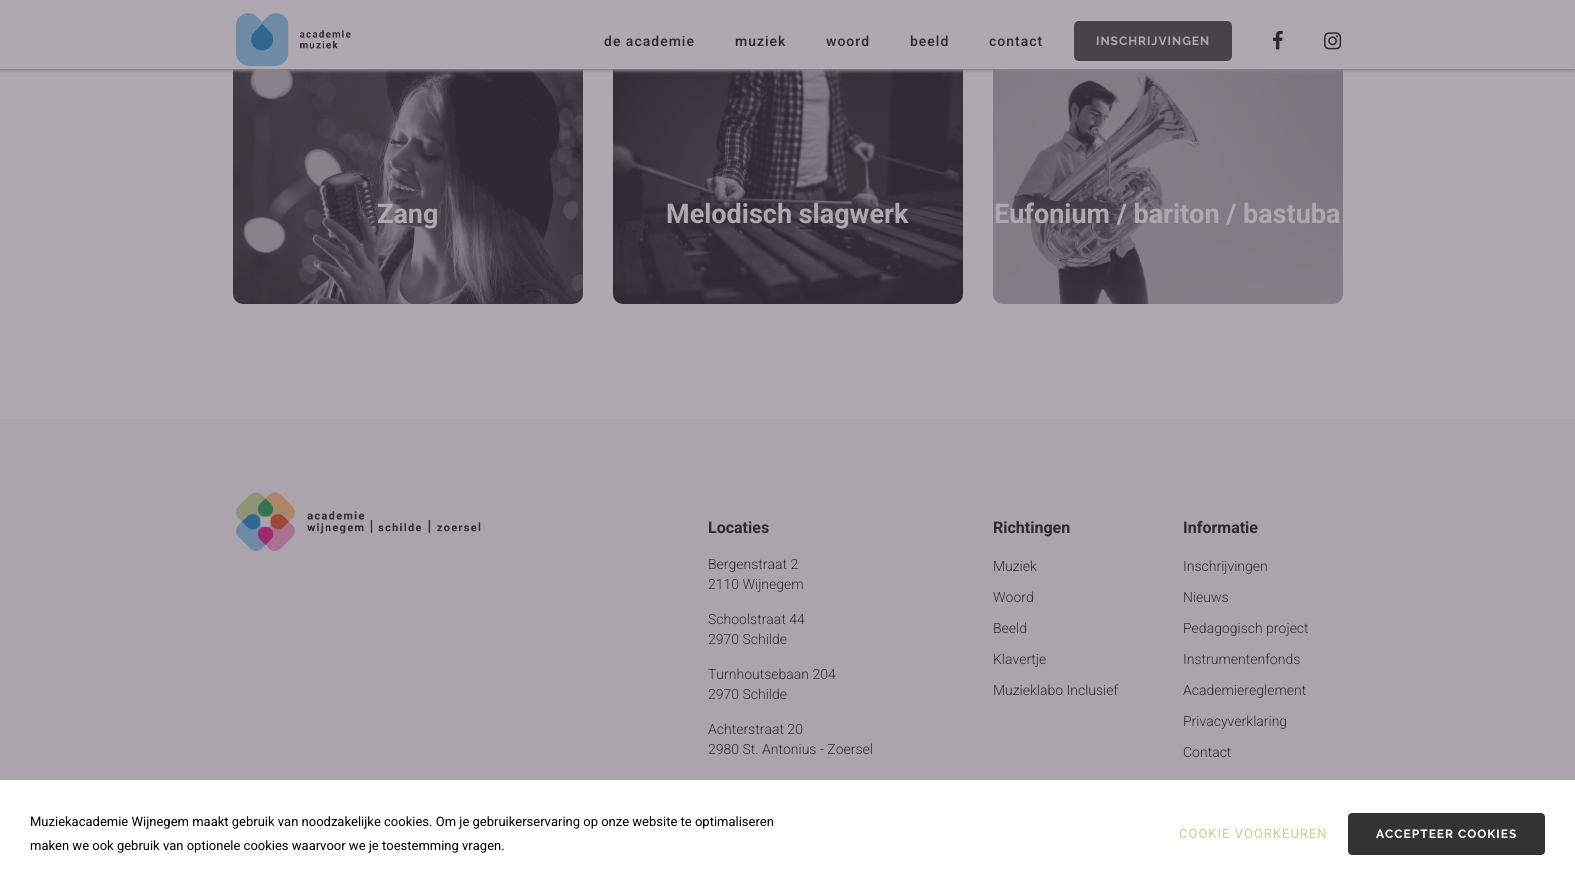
#include <cairo.h>
#include <math.h>
#include <stddef.h>


static void set_color(cairo_t *cr, unsigned color) {
    cairo_set_source_rgb(cr, (color >> 16) / 255.0, (color >> 8 & 255) / 255.0, (color & 255) / 255.0);
}

static void draw_text(cairo_t *cr, double x, double y, const char *s, const char *family, double size, int italic, int bold, unsigned color) {
    cairo_select_font_face(cr, family, italic ? CAIRO_FONT_SLANT_ITALIC : CAIRO_FONT_SLANT_NORMAL,
        bold ? CAIRO_FONT_WEIGHT_BOLD : CAIRO_FONT_WEIGHT_NORMAL);
    cairo_set_font_size(cr, size);
    set_color(cr, color);
    cairo_move_to(cr, x, y);
    cairo_show_text(cr, s);
}

static void draw_spaced(cairo_t *cr, double x, double y, const char *s, double letter, double word) {
    cairo_move_to(cr, x, y);
    while (*s) {
        char ch[5] = {0};
        int n = 0;
        do ch[n++] = *s++; while ((*s & 0xC0) == 0x80);
        cairo_show_text(cr, ch);
        cairo_rel_move_to(cr, letter + word * (*ch == ' '), 0);
    }
}

static void fill_rect(cairo_t *cr, double x, double y, double w, double h, unsigned color) {
    set_color(cr, color);
    cairo_rectangle(cr, x, y, w, h);
    cairo_fill(cr);
}

static void rounded_rect(cairo_t *cr, double x, double y, double w, double h, double r) {
    cairo_new_sub_path(cr);
    cairo_arc(cr, x + w - r, y + h - r, r, 0, M_PI / 2);
    cairo_arc(cr, x + r, y + h - r, r, M_PI / 2, M_PI);
    cairo_arc(cr, x + r, y + r, r, M_PI, 1.5 * M_PI);
    cairo_arc(cr, x + w - r, y + r, r, 1.5 * M_PI, 2 * M_PI);
    cairo_close_path(cr);
}

static void draw_shadow(cairo_t *cr, double x, double y, double w, double h, double r, double blur, double alpha) {
    cairo_push_group_with_content(cr, CAIRO_CONTENT_ALPHA);
    cairo_set_operator(cr, CAIRO_OPERATOR_SOURCE);
    for (int i = 15; i >= -15 && fmin(w, h) + blur * i / 3 > 0; i -= 2) {
        double e = blur * i / 6;
        cairo_set_source_rgba(cr, 0, 0, 0, alpha * erfc((i - 1) / 8.5) / 2);
        rounded_rect(cr, x - e, y - e, w + 2 * e, h + 2 * e, fmax(0, fmin(r + e + blur * .6, fmin(w, h) / 2 + e)));
        cairo_fill(cr);
    }
    cairo_pattern_t *soft = cairo_pop_group(cr);
    cairo_mask(cr, soft);
    cairo_pattern_destroy(soft);
}

static void draw_image(cairo_t *cr, const char *path, double x, double y, double w, double h) {
    cairo_surface_t *image = cairo_image_surface_create_from_png(path);
    cairo_save(cr);
    cairo_set_source_surface(cr, image, x, y);
    cairo_rectangle(cr, x, y, w, h);
    cairo_fill(cr);
    cairo_restore(cr);
    cairo_surface_destroy(image);
}

int main(void) {
    cairo_surface_t *surface = cairo_image_surface_create(CAIRO_FORMAT_RGB24, 1575, 888);
    cairo_t *cr = cairo_create(surface);
    cairo_font_options_t *options = cairo_font_options_create();
    cairo_font_options_set_hint_metrics(options, CAIRO_HINT_METRICS_OFF);
    cairo_font_options_set_hint_style(options, CAIRO_HINT_STYLE_NONE);
    cairo_set_font_options(cr, options);
    cairo_set_miter_limit(cr, 4);
    set_color(cr, 0xB0A8B1);
    cairo_paint(cr);
    draw_image(cr, "assets/img4.png", 233, 69, 350, 235);
    cairo_set_source_rgba(cr, 0.188, 0.157, 0.196, 0.3);
    rounded_rect(cr, 233, 54, 350, 250, 10);
    cairo_fill(cr);
    draw_image(cr, "assets/img5.png", 613, 69, 350, 235);
    rounded_rect(cr, 613, 54, 350, 250, 10);
    cairo_fill(cr);
    draw_image(cr, "assets/img6.png", 993, 69, 350, 235);
    rounded_rect(cr, 993, 54, 350, 250, 10);
    cairo_fill(cr);
    set_color(cr, 0x8B838C);
    draw_shadow(cr, 0, 2, 1575, 69, 0, 1.5, 1);
    fill_rect(cr, 0, 0, 1575, 69, 0xB0A8B1);
    draw_image(cr, "assets/img1.png", 236, 13, 115, 54);
    cairo_select_font_face(cr, "Roboto Medium", CAIRO_FONT_SLANT_NORMAL, CAIRO_FONT_WEIGHT_NORMAL);
    cairo_set_font_size(cr, 14);
    set_color(cr, 0x302832);
    draw_spaced(cr, 604, 46, "de academie", 1, 0);
    draw_spaced(cr, 735, 46, "muziek", 1, 0);
    draw_spaced(cr, 826, 46, "woord", 1, 0);
    draw_spaced(cr, 910, 46, "beeld", 1, 0);
    draw_spaced(cr, 989, 46, "contact", 1, 0);
    set_color(cr, 0x4A424B);
    rounded_rect(cr, 1075, 22, 156, 38, 4);
    cairo_fill_preserve(cr);
    cairo_stroke(cr);
    cairo_select_font_face(cr, "Raleway Thin", CAIRO_FONT_SLANT_NORMAL, CAIRO_FONT_WEIGHT_NORMAL);
    cairo_set_font_size(cr, 12);
    set_color(cr, 0xB0A8B1);
    draw_spaced(cr, 1096, 45, "INSCHRIJVINGEN", 1, 0);
    draw_image(cr, "assets/img2.png", 1273, 30, 10, 20);
    draw_image(cr, "assets/img3.png", 1324, 32, 18, 18);
    draw_text(cr, 377, 223, "Zang", "Roboto", 27, 0, 1, 0xB0A8B1);
    draw_text(cr, 666, 223, "Melodisch slagwerk", "Roboto", 27, 0, 1, 0xB0A8B1);
    draw_text(cr, 994, 223, "Eufonium / bariton / bastuba", "Roboto", 27, 0, 1, 0xB0A8B1);
    fill_rect(cr, 0, 419, 1575, 361, 0xACA4AD);
    draw_image(cr, "assets/img7.png", 235, 492, 246, 59);
    draw_text(cr, 708, 533, "Locaties", "Roboto", 16, 0, 1, 0x302832);
    draw_text(cr, 708, 569, "Bergenstraat 2", "Roboto Light", 14, 0, 0, 0x302832);
    draw_text(cr, 708, 589, "2110 Wijnegem", "Roboto Light", 14, 0, 0, 0x302832);
    draw_text(cr, 708, 624, "Schoolstraat 44", "Roboto Light", 14, 0, 0, 0x302832);
    draw_text(cr, 708, 644, "2970 Schilde", "Roboto Light", 14, 0, 0, 0x302832);
    draw_text(cr, 708, 679, "Turnhoutsebaan 204", "Roboto Light", 14, 0, 0, 0x302832);
    draw_text(cr, 708, 699, "2970 Schilde", "Roboto Light", 14, 0, 0, 0x302832);
    draw_text(cr, 708, 734, "Achterstraat 20", "Roboto Light", 14, 0, 0, 0x302832);
    draw_text(cr, 708, 754, "2980 St. Antonius - Zoersel", "Roboto Light", 14, 0, 0, 0x302832);
    draw_text(cr, 993, 533, "Richtingen", "Roboto", 16, 0, 1, 0x302832);
    draw_text(cr, 993, 571, "Muziek", "Roboto Light", 14, 0, 0, 0x302832);
    draw_text(cr, 993, 602, "Woord", "Roboto Light", 14, 0, 0, 0x302832);
    draw_text(cr, 993, 633, "Beeld", "Roboto Light", 14, 0, 0, 0x302832);
    draw_text(cr, 993, 664, "Klavertje", "Roboto Light", 14, 0, 0, 0x302832);
    draw_text(cr, 993, 695, "Muzieklabo Inclusief", "Roboto Light", 14, 0, 0, 0x302832);
    draw_text(cr, 1183, 533, "Informatie", "Roboto", 16, 0, 1, 0x302832);
    draw_text(cr, 1183, 571, "Inschrijvingen", "Roboto Light", 14, 0, 0, 0x302832);
    draw_text(cr, 1183, 602, "Nieuws", "Roboto Light", 14, 0, 0, 0x302832);
    draw_text(cr, 1183, 633, "Pedagogisch project", "Roboto Light", 14, 0, 0, 0x302832);
    draw_text(cr, 1183, 664, "Instrumentenfonds", "Roboto Light", 14, 0, 0, 0x302832);
    draw_text(cr, 1183, 695, "Academiereglement", "Roboto Light", 14, 0, 0, 0x302832);
    draw_text(cr, 1183, 726, "Privacyverklaring", "Roboto Light", 14, 0, 0, 0x302832);
    draw_text(cr, 1183, 757, "Contact", "Roboto Light", 14, 0, 0, 0x302832);
    fill_rect(cr, 0, 780, 1575, 108, 0xFFFFFF);
    draw_text(cr, 30, 826, "Muziekacademie Wijnegem maakt gebruik van noodzakelijke cookies. Om je gebruikerservaring op onze website te optimaliseren", "Roboto", 13, 0, 0, 0x000000);
    draw_text(cr, 30, 850, "maken we ook gebruik van optionele cookies waarvoor we je toestemming vragen.", "Roboto", 13, 0, 0, 0x000000);
    set_color(cr, 0xBBD688);
    draw_spaced(cr, 1179, 838, "COOKIE VOORKEUREN", 1, 0);
    set_color(cr, 0x333333);
    rounded_rect(cr, 1349, 814, 195, 40, 3);
    cairo_fill_preserve(cr);
    cairo_stroke(cr);
    cairo_select_font_face(cr, "Raleway Thin", CAIRO_FONT_SLANT_NORMAL, CAIRO_FONT_WEIGHT_NORMAL);
    cairo_set_font_size(cr, 12);
    set_color(cr, 0xFFFFFF);
    draw_spaced(cr, 1376, 838, "ACCEPTEER COOKIES", 1, 0);
    cairo_surface_write_to_png(surface, "output.png");
    cairo_font_options_destroy(options);
    cairo_destroy(cr);
    cairo_surface_destroy(surface);
    return 0;
}
